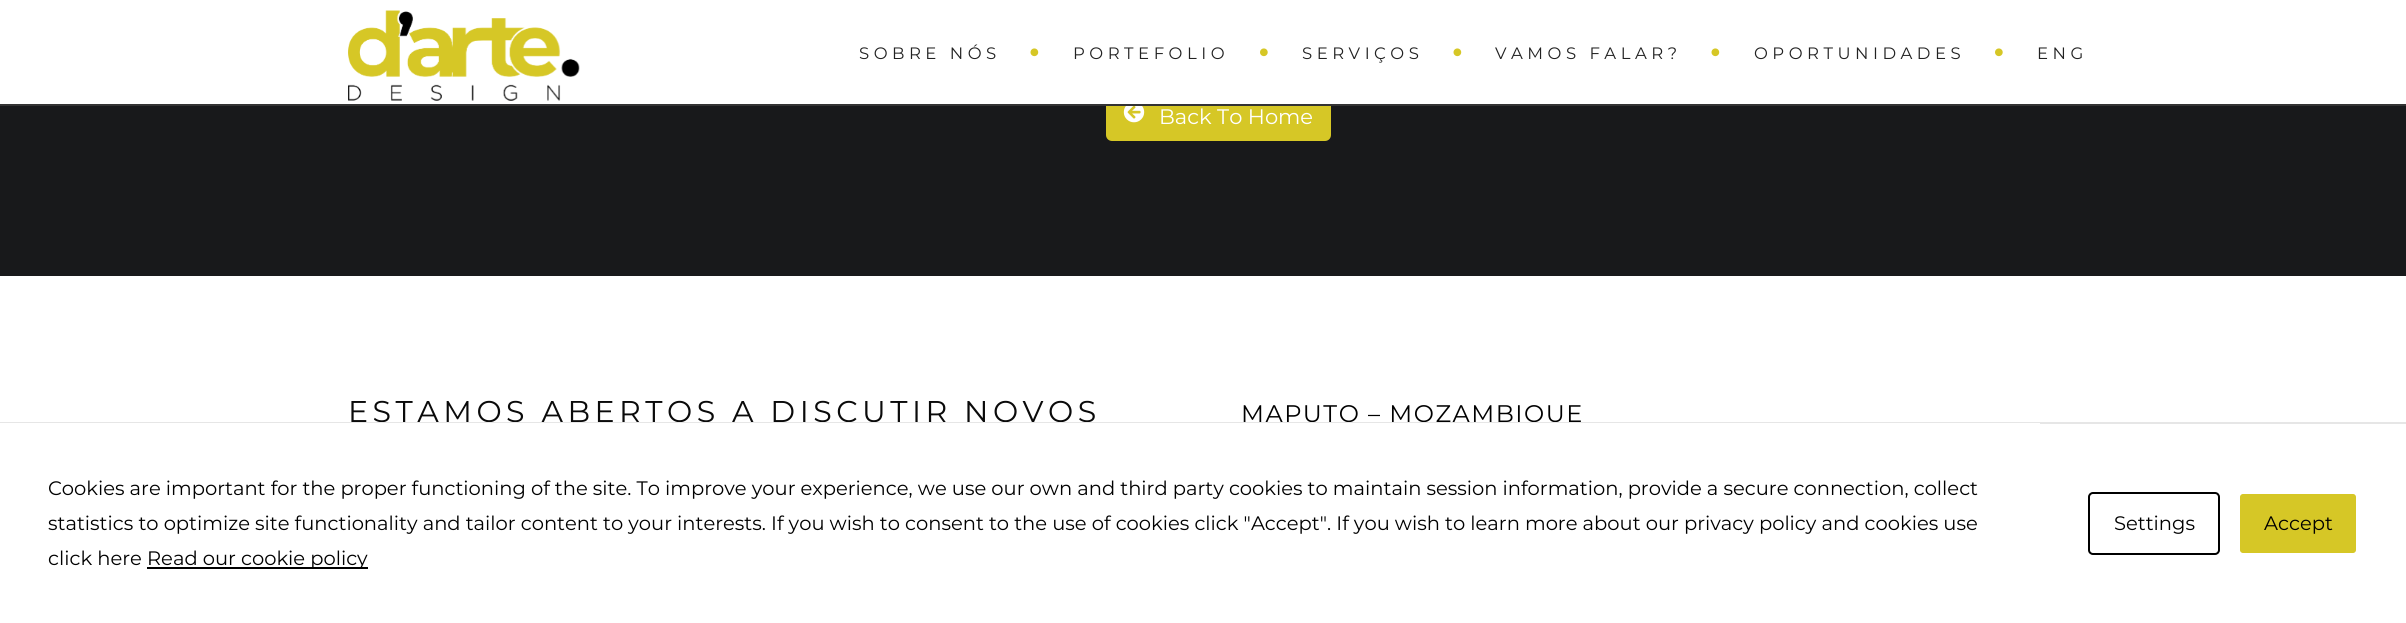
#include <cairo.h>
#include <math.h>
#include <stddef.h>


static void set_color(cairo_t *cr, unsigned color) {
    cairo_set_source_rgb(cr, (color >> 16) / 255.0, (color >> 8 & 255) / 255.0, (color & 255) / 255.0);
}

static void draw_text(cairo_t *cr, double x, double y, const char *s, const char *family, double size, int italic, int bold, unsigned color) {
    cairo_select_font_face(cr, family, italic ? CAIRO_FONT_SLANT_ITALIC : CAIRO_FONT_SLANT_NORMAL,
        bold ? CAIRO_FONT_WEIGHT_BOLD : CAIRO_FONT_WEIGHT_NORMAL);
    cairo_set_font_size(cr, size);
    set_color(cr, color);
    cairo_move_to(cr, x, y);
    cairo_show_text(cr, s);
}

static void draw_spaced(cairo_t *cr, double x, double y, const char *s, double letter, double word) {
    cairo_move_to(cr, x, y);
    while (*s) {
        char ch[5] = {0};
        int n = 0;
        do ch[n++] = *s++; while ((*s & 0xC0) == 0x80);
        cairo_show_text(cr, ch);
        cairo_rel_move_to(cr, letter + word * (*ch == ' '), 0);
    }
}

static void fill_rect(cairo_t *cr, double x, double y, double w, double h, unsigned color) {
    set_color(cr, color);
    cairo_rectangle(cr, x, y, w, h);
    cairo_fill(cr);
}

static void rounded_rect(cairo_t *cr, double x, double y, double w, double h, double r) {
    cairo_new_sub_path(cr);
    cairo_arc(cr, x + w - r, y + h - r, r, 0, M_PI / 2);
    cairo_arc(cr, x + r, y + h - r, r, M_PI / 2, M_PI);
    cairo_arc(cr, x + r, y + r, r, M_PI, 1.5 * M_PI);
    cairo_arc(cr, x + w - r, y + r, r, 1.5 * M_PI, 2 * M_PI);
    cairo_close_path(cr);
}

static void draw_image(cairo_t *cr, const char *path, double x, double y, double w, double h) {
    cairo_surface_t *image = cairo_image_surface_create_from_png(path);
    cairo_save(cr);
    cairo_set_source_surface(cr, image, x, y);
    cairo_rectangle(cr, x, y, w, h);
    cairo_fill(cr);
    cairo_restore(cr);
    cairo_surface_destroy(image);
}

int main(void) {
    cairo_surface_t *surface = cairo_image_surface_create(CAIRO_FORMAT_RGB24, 2406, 623);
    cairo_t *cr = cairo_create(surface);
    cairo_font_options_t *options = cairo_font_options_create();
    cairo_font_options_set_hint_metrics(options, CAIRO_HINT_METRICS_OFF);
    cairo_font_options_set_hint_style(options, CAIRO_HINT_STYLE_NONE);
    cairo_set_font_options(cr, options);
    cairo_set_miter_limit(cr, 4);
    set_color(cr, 0xFFFFFF);
    cairo_paint(cr);
    fill_rect(cr, 0, 106, 2406, 170, 0x18191B);
    set_color(cr, 0xD6C726);
    rounded_rect(cr, 1106, 93, 225, 48, 6);
    cairo_fill(cr);
    fill_rect(cr, 1106, 93, 225, 11, 0xFFFFFF);
    fill_rect(cr, 0, 104, 2406, 2, 0x333333);
    draw_image(cr, "assets/img1.png", 348, 10, 232, 91);
    cairo_select_font_face(cr, "Montserrat Thin", CAIRO_FONT_SLANT_NORMAL, CAIRO_FONT_WEIGHT_NORMAL);
    cairo_set_font_size(cr, 16.5);
    set_color(cr, 0x222222);
    draw_spaced(cr, 859, 59, "SOBRE NÓS", 4.5, 0);
    draw_image(cr, "assets/img2.png", 1030, 48, 9, 9);
    draw_spaced(cr, 1073, 59, "PORTEFOLIO", 4.5, 0);
    draw_image(cr, "assets/img3.png", 1260, 48, 8, 9);
    draw_spaced(cr, 1302, 59, "SERVIÇOS", 4.5, 0);
    draw_image(cr, "assets/img2.png", 1453, 48, 9, 9);
    draw_spaced(cr, 1495, 59, "VAMOS FALAR?", 4.5, 0);
    draw_image(cr, "assets/img2.png", 1711, 48, 9, 9);
    draw_spaced(cr, 1754, 59, "OPORTUNIDADES", 4.5, 0);
    draw_image(cr, "assets/img3.png", 1995, 48, 8, 9);
    draw_spaced(cr, 2037, 59, "ENG", 4.5, 0);
    draw_image(cr, "assets/img4.png", 1123, 106, 22, 17);
    draw_text(cr, 1159, 124, "Back To Home", "Montserrat Thin", 21, 0, 0, 0xFFFFFF);
    cairo_set_font_size(cr, 30);
    set_color(cr, 0x0A0A0A);
    draw_spaced(cr, 348, 422, "ESTAMOS ABERTOS A DISCUTIR NOVOS", 4.5, 0);
    cairo_set_font_size(cr, 24);
    set_color(cr, 0x000000);
    draw_spaced(cr, 1241, 422, "MAPUTO – MOZAMBIQUE", 1.5, 0);
    fill_rect(cr, 0, 422, 2406, 2, 0xE6E6E6);
    fill_rect(cr, 0, 423, 2040, 3, 0xFFFFFF);
    draw_text(cr, 48, 495, "Cookies are important for the proper functioning of the site. To improve your experience, we use our own and third party cookies to maintain session information, provide a secure connection, collect", "Montserrat Thin", 19.5, 0, 0, 0x000000);
    draw_text(cr, 48, 530, "statistics to optimize site functionality and tailor content to your interests. If you wish to consent to the use of cookies click \"Accept\". If you wish to learn more about our privacy policy and cookies use", "Montserrat Thin", 19.5, 0, 0, 0x000000);
    draw_text(cr, 48, 565, "click here", "Montserrat Thin", 19.5, 0, 0, 0x000000);
    fill_rect(cr, 147, 567, 221, 2, 0x000000);
    draw_text(cr, 147, 565, "Read our cookie policy", "Montserrat Thin", 19.5, 0, 0, 0x000000);
    rounded_rect(cr, 2089, 493, 130, 61, 4);
    cairo_stroke(cr);
    draw_text(cr, 2114, 530, "Settings", "Montserrat Thin", 19.5, 0, 0, 0x000000);
    set_color(cr, 0xD6C726);
    rounded_rect(cr, 2239, 493, 118, 61, 4);
    cairo_fill_preserve(cr);
    set_color(cr, 0xFFFFFF);
    cairo_stroke(cr);
    draw_text(cr, 2264, 530, "Accept", "Montserrat Thin", 19.5, 0, 0, 0x000000);
    cairo_surface_write_to_png(surface, "output.png");
    cairo_font_options_destroy(options);
    cairo_destroy(cr);
    cairo_surface_destroy(surface);
    return 0;
}
